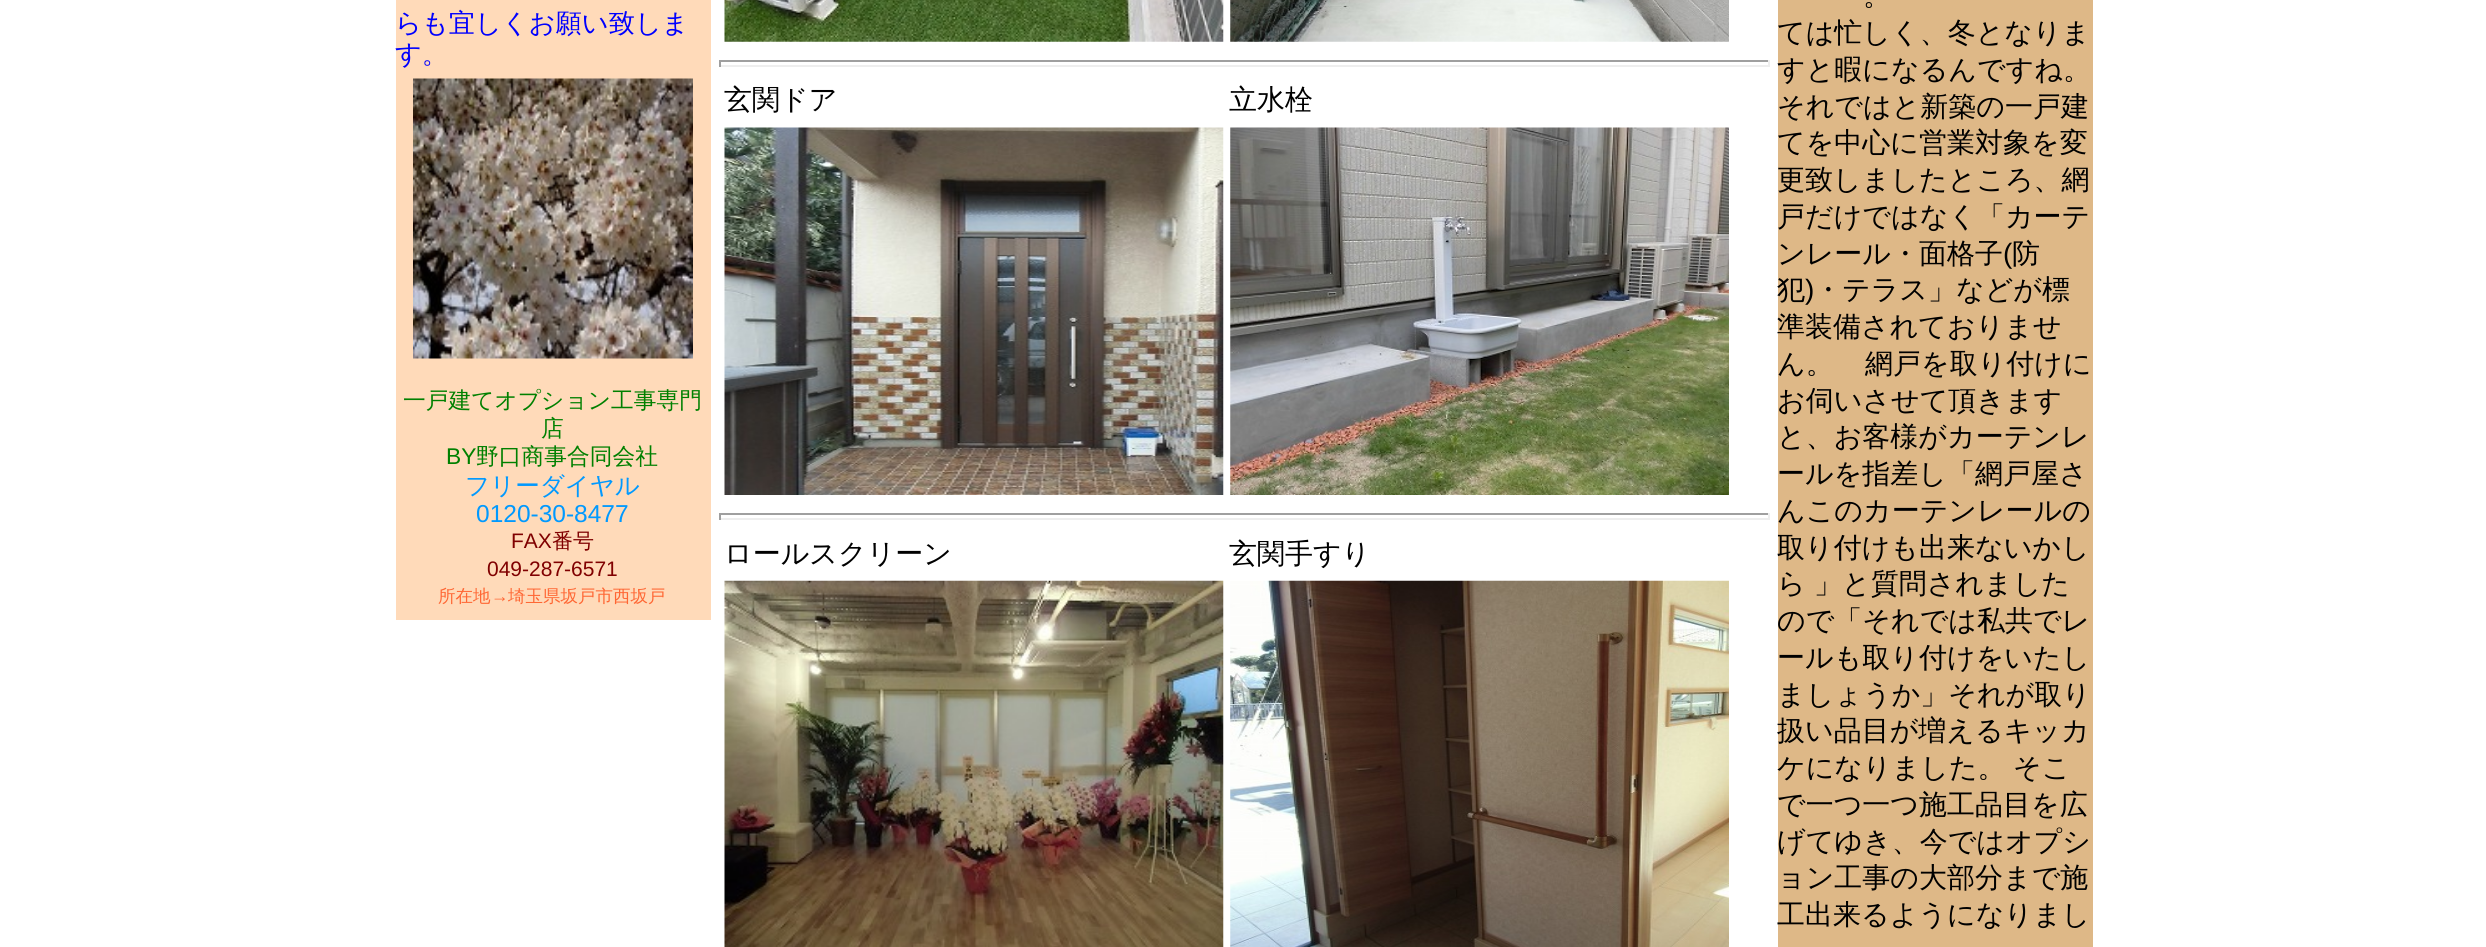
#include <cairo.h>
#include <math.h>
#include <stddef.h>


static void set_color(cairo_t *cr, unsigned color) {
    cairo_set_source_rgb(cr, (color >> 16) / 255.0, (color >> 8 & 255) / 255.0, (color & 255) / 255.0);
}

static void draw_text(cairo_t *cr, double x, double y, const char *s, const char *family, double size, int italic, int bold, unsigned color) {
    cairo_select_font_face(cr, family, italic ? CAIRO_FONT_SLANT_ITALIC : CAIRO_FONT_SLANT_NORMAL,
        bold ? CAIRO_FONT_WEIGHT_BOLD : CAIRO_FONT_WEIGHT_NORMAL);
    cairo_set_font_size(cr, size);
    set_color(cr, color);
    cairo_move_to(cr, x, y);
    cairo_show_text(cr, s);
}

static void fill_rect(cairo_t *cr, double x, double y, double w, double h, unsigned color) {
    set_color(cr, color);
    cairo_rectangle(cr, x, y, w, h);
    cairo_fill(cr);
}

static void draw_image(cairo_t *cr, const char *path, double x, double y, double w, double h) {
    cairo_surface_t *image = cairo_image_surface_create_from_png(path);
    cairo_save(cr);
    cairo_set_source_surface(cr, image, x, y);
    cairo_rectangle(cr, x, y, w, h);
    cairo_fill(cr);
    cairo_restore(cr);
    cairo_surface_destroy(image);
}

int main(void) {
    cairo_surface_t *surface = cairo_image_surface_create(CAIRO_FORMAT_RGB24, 2486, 947);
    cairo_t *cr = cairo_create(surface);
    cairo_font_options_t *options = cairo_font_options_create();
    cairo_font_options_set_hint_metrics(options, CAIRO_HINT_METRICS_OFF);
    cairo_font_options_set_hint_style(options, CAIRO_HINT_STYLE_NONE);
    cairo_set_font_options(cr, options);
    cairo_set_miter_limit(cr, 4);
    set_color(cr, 0xFFFFFF);
    cairo_paint(cr);
    fill_rect(cr, 396, 0, 315, 620, 0xFFDAB9);
    draw_text(cr, 395, 32, "らも宜しくお願い致しま", "WenQuanYi Zen Hei Medium", 26.25, 0, 0, 0x0000FF);
    draw_text(cr, 395, 63, "す。", "WenQuanYi Zen Hei Medium", 26.25, 0, 0, 0x0000FF);
    draw_image(cr, "assets/img1.png", 413, 78, 280, 281);
    draw_text(cr, 403, 408, "一戸建てオプション工事専門", "WenQuanYi Zen Hei Medium", 22.75, 0, 0, 0x008000);
    draw_text(cr, 541, 436, "店", "WenQuanYi Zen Hei Medium", 22.75, 0, 0, 0x008000);
    draw_text(cr, 446, 464, "BY", "Liberation Sans", 22.75, 0, 0, 0x008000);
    draw_text(cr, 476, 464, "野口商事合同会社", "WenQuanYi Zen Hei Medium", 22.75, 0, 0, 0x008000);
    draw_text(cr, 465, 494, "フリーダイヤル", "WenQuanYi Zen Hei Medium", 24.5, 0, 0, 0x0099FF);
    draw_text(cr, 476, 522, "0120-30-8477", "Liberation Sans", 24.5, 0, 0, 0x0099FF);
    draw_text(cr, 511, 548, "FAX", "Liberation Sans", 21, 0, 0, 0x800000);
    draw_text(cr, 552, 548, "番号", "WenQuanYi Zen Hei Medium", 21, 0, 0, 0x800000);
    draw_text(cr, 487, 576, "049-287-6571", "Liberation Sans", 21, 0, 0, 0x800000);
    draw_text(cr, 438, 602, "所在地", "WenQuanYi Zen Hei Medium", 17.5, 0, 0, 0xFF6633);
    draw_text(cr, 491, 602, "→", "Liberation Sans", 17.5, 0, 0, 0xFF6633);
    draw_text(cr, 508, 602, "埼玉県坂戸市西坂戸", "WenQuanYi Zen Hei Medium", 17.5, 0, 0, 0xFF6633);
    draw_image(cr, "assets/img2.png", 724, 0, 500, 42);
    draw_image(cr, "assets/img3.png", 1230, 0, 499, 42);
    fill_rect(cr, 719, 60, 1050, 2, 0x9F9F9F);
    fill_rect(cr, 1768, 60, 2, 7, 0xEEEEEE);
    fill_rect(cr, 719, 65, 1050, 2, 0xEEEEEE);
    fill_rect(cr, 719, 60, 2, 7, 0x9F9F9F);
    draw_text(cr, 724, 109, "玄関ドア", "WenQuanYi Zen Hei Medium", 28, 0, 0, 0x000000);
    draw_text(cr, 1229, 109, "立水栓", "WenQuanYi Zen Hei Medium", 28, 0, 0, 0x000000);
    draw_image(cr, "assets/img4.png", 724, 127, 500, 368);
    draw_image(cr, "assets/img5.png", 1230, 127, 499, 368);
    fill_rect(cr, 719, 513, 1050, 2, 0x9F9F9F);
    fill_rect(cr, 1768, 513, 2, 7, 0xEEEEEE);
    fill_rect(cr, 719, 518, 1050, 2, 0xEEEEEE);
    fill_rect(cr, 719, 513, 2, 7, 0x9F9F9F);
    draw_text(cr, 724, 563, "ロールスクリーン", "WenQuanYi Zen Hei Medium", 28, 0, 0, 0x000000);
    draw_text(cr, 1229, 563, "玄関手すり", "WenQuanYi Zen Hei Medium", 28, 0, 0, 0x000000);
    draw_image(cr, "assets/img6.png", 724, 580, 500, 367);
    draw_image(cr, "assets/img7.png", 1230, 580, 499, 367);
    fill_rect(cr, 1778, 0, 315, 947, 0xDEB887);
    draw_text(cr, 1863, 5, "。", "WenQuanYi Zen Hei Medium", 28, 0, 0, 0x000000);
    draw_text(cr, 1777, 42, "ては忙しく、冬となりま", "WenQuanYi Zen Hei Medium", 28, 0, 0, 0x000000);
    draw_text(cr, 1777, 79, "すと暇になるんですね。", "WenQuanYi Zen Hei Medium", 28, 0, 0, 0x000000);
    draw_text(cr, 1777, 116, "それではと新築の一戸建", "WenQuanYi Zen Hei Medium", 28, 0, 0, 0x000000);
    draw_text(cr, 1777, 152, "てを中心に営業対象を変", "WenQuanYi Zen Hei Medium", 28, 0, 0, 0x000000);
    draw_text(cr, 1777, 189, "更致しましたところ、網", "WenQuanYi Zen Hei Medium", 28, 0, 0, 0x000000);
    draw_text(cr, 1777, 226, "戸だけではなく「カーテ", "WenQuanYi Zen Hei Medium", 28, 0, 0, 0x000000);
    draw_text(cr, 1777, 263, "ンレール・面格子", "WenQuanYi Zen Hei Medium", 28, 0, 0, 0x000000);
    draw_text(cr, 2003, 263, "(", "Liberation Sans", 28, 0, 0, 0x000000);
    draw_text(cr, 2012, 263, "防", "WenQuanYi Zen Hei Medium", 28, 0, 0, 0x000000);
    draw_text(cr, 1777, 299, "犯", "WenQuanYi Zen Hei Medium", 28, 0, 0, 0x000000);
    draw_text(cr, 1805, 299, ")", "Liberation Sans", 28, 0, 0, 0x000000);
    draw_text(cr, 1814, 299, "・テラス」などが標", "WenQuanYi Zen Hei Medium", 28, 0, 0, 0x000000);
    draw_text(cr, 1777, 336, "準装備されておりませ", "WenQuanYi Zen Hei Medium", 28, 0, 0, 0x000000);
    draw_text(cr, 1777, 373, "ん。", "WenQuanYi Zen Hei Medium", 28, 0, 0, 0x000000);
    draw_text(cr, 1865, 373, "網戸を取り付けに", "WenQuanYi Zen Hei Medium", 28, 0, 0, 0x000000);
    draw_text(cr, 1777, 410, "お伺いさせて頂きます", "WenQuanYi Zen Hei Medium", 28, 0, 0, 0x000000);
    draw_text(cr, 1777, 446, "と、お客様がカーテンレ", "WenQuanYi Zen Hei Medium", 28, 0, 0, 0x000000);
    draw_text(cr, 1777, 483, "ールを指差し「網戸屋さ", "WenQuanYi Zen Hei Medium", 28, 0, 0, 0x000000);
    draw_text(cr, 1777, 520, "んこのカーテンレールの", "WenQuanYi Zen Hei Medium", 28, 0, 0, 0x000000);
    draw_text(cr, 1777, 557, "取り付けも出来ないかし", "WenQuanYi Zen Hei Medium", 28, 0, 0, 0x000000);
    draw_text(cr, 1777, 593, "ら", "WenQuanYi Zen Hei Medium", 28, 0, 0, 0x000000);
    draw_text(cr, 1814, 593, "」と質問されました", "WenQuanYi Zen Hei Medium", 28, 0, 0, 0x000000);
    draw_text(cr, 1777, 630, "ので「それでは私共でレ", "WenQuanYi Zen Hei Medium", 28, 0, 0, 0x000000);
    draw_text(cr, 1777, 667, "ールも取り付けをいたし", "WenQuanYi Zen Hei Medium", 28, 0, 0, 0x000000);
    draw_text(cr, 1777, 704, "ましょうか」それが取り", "WenQuanYi Zen Hei Medium", 28, 0, 0, 0x000000);
    draw_text(cr, 1777, 740, "扱い品目が増えるキッカ", "WenQuanYi Zen Hei Medium", 28, 0, 0, 0x000000);
    draw_text(cr, 1777, 777, "ケになりました。", "WenQuanYi Zen Hei Medium", 28, 0, 0, 0x000000);
    draw_text(cr, 2013, 777, "そこ", "WenQuanYi Zen Hei Medium", 28, 0, 0, 0x000000);
    draw_text(cr, 1777, 814, "で一つ一つ施工品目を広", "WenQuanYi Zen Hei Medium", 28, 0, 0, 0x000000);
    draw_text(cr, 1777, 851, "げてゆき、今ではオプシ", "WenQuanYi Zen Hei Medium", 28, 0, 0, 0x000000);
    draw_text(cr, 1777, 887, "ョン工事の大部分まで施", "WenQuanYi Zen Hei Medium", 28, 0, 0, 0x000000);
    draw_text(cr, 1777, 924, "工出来るようになりまし", "WenQuanYi Zen Hei Medium", 28, 0, 0, 0x000000);
    cairo_surface_write_to_png(surface, "output.png");
    cairo_font_options_destroy(options);
    cairo_destroy(cr);
    cairo_surface_destroy(surface);
    return 0;
}
